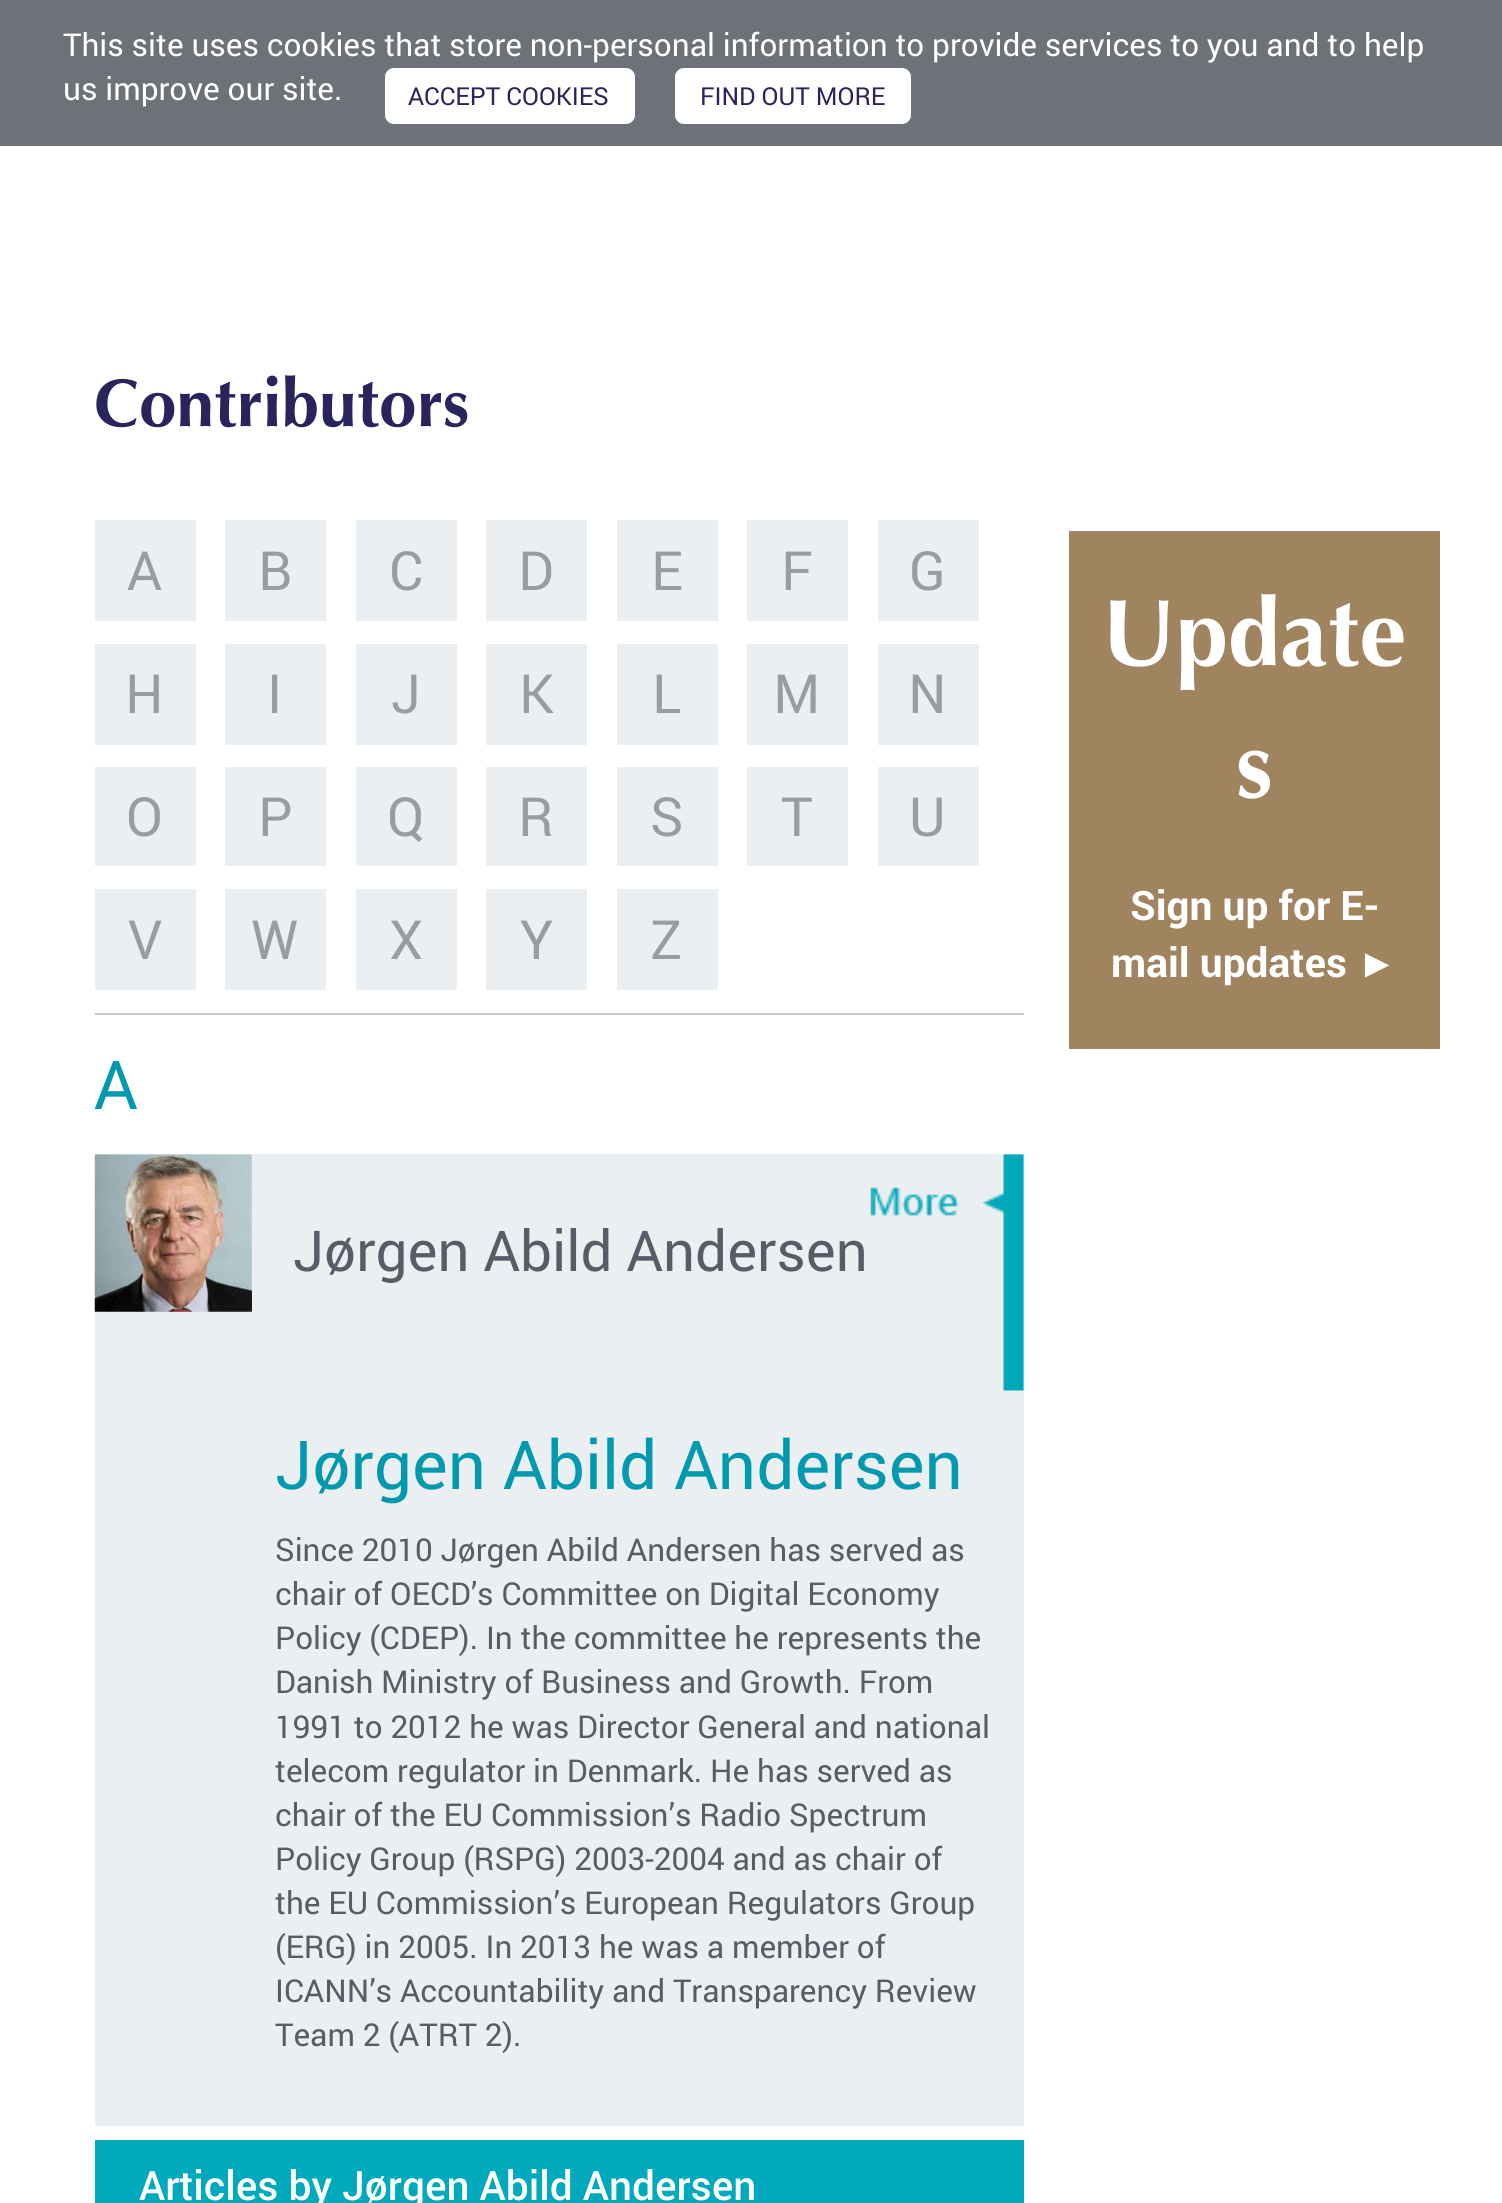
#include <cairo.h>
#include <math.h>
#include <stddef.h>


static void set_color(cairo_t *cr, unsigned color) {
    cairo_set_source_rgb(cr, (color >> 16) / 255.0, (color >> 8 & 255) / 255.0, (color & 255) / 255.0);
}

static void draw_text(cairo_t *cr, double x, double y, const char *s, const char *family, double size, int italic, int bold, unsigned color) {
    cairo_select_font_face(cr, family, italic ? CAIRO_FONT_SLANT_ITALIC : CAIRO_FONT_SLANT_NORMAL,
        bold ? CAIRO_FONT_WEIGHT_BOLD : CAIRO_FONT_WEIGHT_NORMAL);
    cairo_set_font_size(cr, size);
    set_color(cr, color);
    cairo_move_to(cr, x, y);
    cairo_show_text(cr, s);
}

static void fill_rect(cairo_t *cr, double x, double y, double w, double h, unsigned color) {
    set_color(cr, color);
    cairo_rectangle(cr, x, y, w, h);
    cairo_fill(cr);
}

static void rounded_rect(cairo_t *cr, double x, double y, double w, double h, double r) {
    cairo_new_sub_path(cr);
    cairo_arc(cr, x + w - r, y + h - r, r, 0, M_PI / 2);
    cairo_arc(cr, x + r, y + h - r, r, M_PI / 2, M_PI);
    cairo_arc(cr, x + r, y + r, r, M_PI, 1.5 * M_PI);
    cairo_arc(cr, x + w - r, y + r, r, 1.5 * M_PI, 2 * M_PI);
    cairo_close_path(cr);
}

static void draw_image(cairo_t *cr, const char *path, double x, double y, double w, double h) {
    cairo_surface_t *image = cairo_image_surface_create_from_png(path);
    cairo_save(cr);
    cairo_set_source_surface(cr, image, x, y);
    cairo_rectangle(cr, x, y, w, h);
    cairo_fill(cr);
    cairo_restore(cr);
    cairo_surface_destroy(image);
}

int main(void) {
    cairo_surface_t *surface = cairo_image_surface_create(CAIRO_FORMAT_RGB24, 1502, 2203);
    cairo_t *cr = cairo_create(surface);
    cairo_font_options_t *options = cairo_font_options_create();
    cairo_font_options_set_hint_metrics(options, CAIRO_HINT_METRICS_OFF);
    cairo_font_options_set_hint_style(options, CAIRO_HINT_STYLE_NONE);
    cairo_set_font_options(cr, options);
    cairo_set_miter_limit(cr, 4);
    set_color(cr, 0xFFFFFF);
    cairo_paint(cr);
    fill_rect(cr, 0, 0, 1502, 146, 0x6E7278);
    draw_text(cr, 63, 56, "This site uses cookies that store non-personal information to provide services to you and to help", "roboto", 31.5, 0, 0, 0xFFFFFF);
    draw_text(cr, 63, 100, "us improve our site.", "roboto", 31.5, 0, 0, 0xFFFFFF);
    rounded_rect(cr, 386, 69, 248, 54, 8);
    cairo_fill_preserve(cr);
    cairo_stroke(cr);
    draw_text(cr, 408, 105, "ACCEPT COOKIES", "roboto", 24.75, 0, 0, 0x29245C);
    set_color(cr, 0xFFFFFF);
    rounded_rect(cr, 676, 69, 234, 54, 8);
    cairo_fill_preserve(cr);
    cairo_stroke(cr);
    draw_text(cr, 700, 105, "FIND OUT MORE", "roboto", 24.75, 0, 0, 0x29245C);
    draw_text(cr, 94, 426, "Contributors", "Optima", 67.5, 0, 0, 0x29245C);
    fill_rect(cr, 95, 1013, 929, 2, 0xC1C8D0);
    fill_rect(cr, 95, 520, 101, 101, 0xECEFF1);
    draw_text(cr, 127, 590, "A", "roboto", 54, 0, 0, 0x9A9CA1);
    fill_rect(cr, 225, 520, 101, 101, 0xECEFF1);
    draw_text(cr, 258, 590, "B", "roboto", 54, 0, 0, 0x9A9CA1);
    fill_rect(cr, 356, 520, 101, 101, 0xECEFF1);
    draw_text(cr, 389, 590, "C", "roboto", 54, 0, 0, 0x9A9CA1);
    fill_rect(cr, 486, 520, 101, 101, 0xECEFF1);
    draw_text(cr, 518, 590, "D", "roboto", 54, 0, 0, 0x9A9CA1);
    fill_rect(cr, 617, 520, 101, 101, 0xECEFF1);
    draw_text(cr, 651, 590, "E", "roboto", 54, 0, 0, 0x9A9CA1);
    fill_rect(cr, 747, 520, 101, 101, 0xECEFF1);
    draw_text(cr, 781, 590, "F", "roboto", 54, 0, 0, 0x9A9CA1);
    fill_rect(cr, 878, 520, 101, 101, 0xECEFF1);
    draw_text(cr, 909, 590, "G", "roboto", 54, 0, 0, 0x9A9CA1);
    fill_rect(cr, 95, 644, 101, 101, 0xECEFF1);
    draw_text(cr, 125, 713, "H", "roboto", 54, 0, 0, 0x9A9CA1);
    fill_rect(cr, 225, 644, 101, 101, 0xECEFF1);
    draw_text(cr, 267, 713, "I", "roboto", 54, 0, 0, 0x9A9CA1);
    fill_rect(cr, 356, 644, 101, 101, 0xECEFF1);
    draw_text(cr, 391, 713, "J", "roboto", 54, 0, 0, 0x9A9CA1);
    fill_rect(cr, 486, 644, 101, 101, 0xECEFF1);
    draw_text(cr, 519, 713, "K", "roboto", 54, 0, 0, 0x9A9CA1);
    fill_rect(cr, 617, 644, 101, 101, 0xECEFF1);
    draw_text(cr, 652, 713, "L", "roboto", 54, 0, 0, 0x9A9CA1);
    fill_rect(cr, 747, 644, 101, 101, 0xECEFF1);
    draw_text(cr, 773, 713, "M", "roboto", 54, 0, 0, 0x9A9CA1);
    fill_rect(cr, 878, 644, 101, 101, 0xECEFF1);
    draw_text(cr, 908, 713, "N", "roboto", 54, 0, 0, 0x9A9CA1);
    fill_rect(cr, 95, 767, 101, 99, 0xECEFF1);
    draw_text(cr, 126, 836, "O", "roboto", 54, 0, 0, 0x9A9CA1);
    fill_rect(cr, 225, 767, 101, 99, 0xECEFF1);
    draw_text(cr, 258, 836, "P", "roboto", 54, 0, 0, 0x9A9CA1);
    fill_rect(cr, 356, 767, 101, 99, 0xECEFF1);
    draw_text(cr, 387, 836, "Q", "roboto", 54, 0, 0, 0x9A9CA1);
    fill_rect(cr, 486, 767, 101, 99, 0xECEFF1);
    draw_text(cr, 518, 836, "R", "roboto", 54, 0, 0, 0x9A9CA1);
    fill_rect(cr, 617, 767, 101, 99, 0xECEFF1);
    draw_text(cr, 650, 836, "S", "roboto", 54, 0, 0, 0x9A9CA1);
    fill_rect(cr, 747, 767, 101, 99, 0xECEFF1);
    draw_text(cr, 781, 836, "T", "roboto", 54, 0, 0, 0x9A9CA1);
    fill_rect(cr, 878, 767, 101, 99, 0xECEFF1);
    draw_text(cr, 909, 836, "U", "roboto", 54, 0, 0, 0x9A9CA1);
    fill_rect(cr, 95, 889, 101, 101, 0xECEFF1);
    draw_text(cr, 128, 959, "V", "roboto", 54, 0, 0, 0x9A9CA1);
    fill_rect(cr, 225, 889, 101, 101, 0xECEFF1);
    draw_text(cr, 251, 959, "W", "roboto", 54, 0, 0, 0x9A9CA1);
    fill_rect(cr, 356, 889, 101, 101, 0xECEFF1);
    draw_text(cr, 389, 959, "X", "roboto", 54, 0, 0, 0x9A9CA1);
    fill_rect(cr, 486, 889, 101, 101, 0xECEFF1);
    draw_text(cr, 520, 959, "Y", "roboto", 54, 0, 0, 0x9A9CA1);
    fill_rect(cr, 617, 889, 101, 101, 0xECEFF1);
    draw_text(cr, 650, 959, "Z", "roboto", 54, 0, 0, 0x9A9CA1);
    draw_text(cr, 94, 1109, "A", "roboto", 67.5, 0, 0, 0x0099AD);
    fill_rect(cr, 95, 1154, 929, 972, 0xECEFF1);
    draw_image(cr, "assets/img1.png", 94, 1154, 158, 158);
    draw_image(cr, "assets/img2.png", 870, 1154, 154, 237);
    draw_text(cr, 293, 1271, "Jørgen Abild Andersen", "roboto", 56.4, 0, 0, 0x575D67);
    draw_text(cr, 275, 1489, "Jørgen Abild Andersen", "roboto", 67.5, 0, 0, 0x0099AD);
    draw_text(cr, 275, 1561, "Since 2010 Jørgen Abild Andersen has served as", "roboto", 31.5, 0, 0, 0x575D67);
    draw_text(cr, 275, 1605, "chair of OECD’s Committee on Digital Economy", "roboto", 31.5, 0, 0, 0x575D67);
    draw_text(cr, 275, 1649, "Policy (CDEP). In the committee he represents the", "roboto", 31.5, 0, 0, 0x575D67);
    draw_text(cr, 275, 1693, "Danish Ministry of Business and Growth. From", "roboto", 31.5, 0, 0, 0x575D67);
    draw_text(cr, 275, 1738, "1991 to 2012 he was Director General and national", "roboto", 31.5, 0, 0, 0x575D67);
    draw_text(cr, 275, 1782, "telecom regulator in Denmark. He has served as", "roboto", 31.5, 0, 0, 0x575D67);
    draw_text(cr, 275, 1826, "chair of the EU Commission’s Radio Spectrum", "roboto", 31.5, 0, 0, 0x575D67);
    draw_text(cr, 275, 1870, "Policy Group (RSPG) 2003-2004 and as chair of", "roboto", 31.5, 0, 0, 0x575D67);
    draw_text(cr, 275, 1914, "the EU Commission’s European Regulators Group", "roboto", 31.5, 0, 0, 0x575D67);
    draw_text(cr, 275, 1958, "(ERG) in 2005. In 2013 he was a member of", "roboto", 31.5, 0, 0, 0x575D67);
    draw_text(cr, 275, 2002, "ICANN’s Accountability and Transparency Review", "roboto", 31.5, 0, 0, 0x575D67);
    draw_text(cr, 275, 2046, "Team 2 (ATRT 2).", "roboto", 31.5, 0, 0, 0x575D67);
    fill_rect(cr, 95, 2140, 929, 63, 0x00A9BB);
    draw_text(cr, 139, 2200, "Articles by Jørgen Abild Andersen", "Roboto Medium", 40.6, 0, 0, 0xFFFFFF);
    fill_rect(cr, 1069, 531, 371, 518, 0xA0845F);
    draw_text(cr, 1102, 665, "Update", "Optima", 94.5, 0, 0, 0xFFFFFF);
    draw_text(cr, 1236, 797, "s", "Optima", 94.5, 0, 0, 0xFFFFFF);
    draw_text(cr, 1130, 920, "Sign up for E-", "roboto", 40.6, 0, 1, 0xFFFFFF);
    draw_text(cr, 1111, 977, "mail updates", "roboto", 40.6, 0, 1, 0xFFFFFF);
    draw_text(cr, 1357, 977, "►", "Liberation Sans", 40.6, 0, 0, 0xFFFFFF);
    cairo_surface_write_to_png(surface, "output.png");
    cairo_font_options_destroy(options);
    cairo_destroy(cr);
    cairo_surface_destroy(surface);
    return 0;
}
